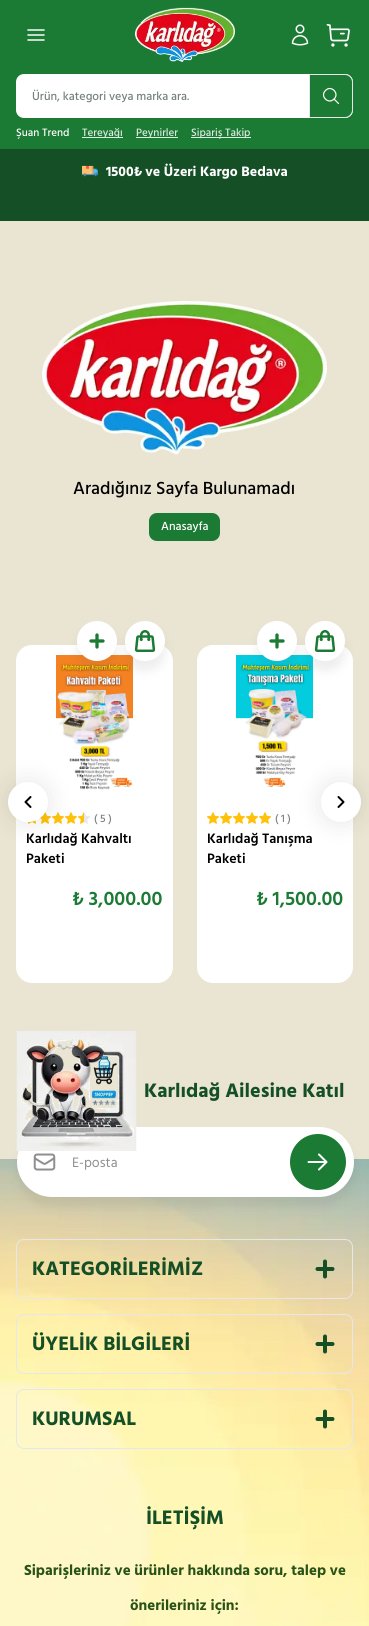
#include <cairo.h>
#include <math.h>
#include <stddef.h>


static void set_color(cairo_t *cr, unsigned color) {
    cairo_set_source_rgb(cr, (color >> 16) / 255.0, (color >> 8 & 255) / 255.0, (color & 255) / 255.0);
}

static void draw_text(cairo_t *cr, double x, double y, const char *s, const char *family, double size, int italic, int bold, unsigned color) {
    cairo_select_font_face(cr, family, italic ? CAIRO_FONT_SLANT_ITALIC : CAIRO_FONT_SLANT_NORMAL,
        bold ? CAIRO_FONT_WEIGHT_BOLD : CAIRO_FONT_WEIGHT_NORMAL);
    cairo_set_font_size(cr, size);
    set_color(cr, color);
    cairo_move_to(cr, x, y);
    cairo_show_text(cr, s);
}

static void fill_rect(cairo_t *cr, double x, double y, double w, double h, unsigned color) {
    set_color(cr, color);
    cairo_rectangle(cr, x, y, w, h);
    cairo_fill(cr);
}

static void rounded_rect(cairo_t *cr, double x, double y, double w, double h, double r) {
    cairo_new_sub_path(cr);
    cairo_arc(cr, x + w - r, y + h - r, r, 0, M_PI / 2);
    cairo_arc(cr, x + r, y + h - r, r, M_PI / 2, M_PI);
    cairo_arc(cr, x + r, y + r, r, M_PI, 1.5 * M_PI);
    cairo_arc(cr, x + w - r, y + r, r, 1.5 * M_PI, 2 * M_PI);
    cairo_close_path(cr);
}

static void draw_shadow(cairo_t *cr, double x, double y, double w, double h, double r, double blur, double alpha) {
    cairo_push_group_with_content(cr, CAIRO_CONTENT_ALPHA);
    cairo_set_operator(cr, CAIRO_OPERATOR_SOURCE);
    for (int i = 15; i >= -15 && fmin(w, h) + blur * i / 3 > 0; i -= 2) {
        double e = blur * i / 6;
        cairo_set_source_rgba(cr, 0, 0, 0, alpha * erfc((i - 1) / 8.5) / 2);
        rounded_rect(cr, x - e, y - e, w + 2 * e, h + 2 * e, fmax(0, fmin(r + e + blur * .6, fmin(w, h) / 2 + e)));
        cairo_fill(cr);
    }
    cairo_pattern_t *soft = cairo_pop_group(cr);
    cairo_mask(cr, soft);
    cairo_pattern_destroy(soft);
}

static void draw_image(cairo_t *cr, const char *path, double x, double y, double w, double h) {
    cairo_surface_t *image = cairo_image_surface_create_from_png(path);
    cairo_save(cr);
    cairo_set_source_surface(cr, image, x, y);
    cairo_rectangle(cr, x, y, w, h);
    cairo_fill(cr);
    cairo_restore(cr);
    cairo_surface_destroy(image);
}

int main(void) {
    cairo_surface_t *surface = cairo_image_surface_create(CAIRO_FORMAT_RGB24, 369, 1626);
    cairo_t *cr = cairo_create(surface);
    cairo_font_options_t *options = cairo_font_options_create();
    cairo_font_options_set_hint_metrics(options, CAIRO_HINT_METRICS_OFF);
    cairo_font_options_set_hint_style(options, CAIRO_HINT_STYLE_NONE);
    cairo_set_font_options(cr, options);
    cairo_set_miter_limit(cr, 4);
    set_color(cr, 0xEAE5D2);
    cairo_paint(cr);
    fill_rect(cr, 0, 0, 369, 149, 0x1B7A33);
    cairo_new_path(cr);
    cairo_move_to(cr, 28, 30);
    cairo_line_to(cr, 44, 30);
    cairo_move_to(cr, 28, 35);
    cairo_line_to(cr, 44, 35);
    cairo_move_to(cr, 28, 40);
    cairo_line_to(cr, 44, 40);
    set_color(cr, 0xFFFFFF);
    cairo_set_line_width(cr, 1.5);
    cairo_set_line_cap(cr, CAIRO_LINE_CAP_ROUND);
    cairo_set_line_join(cr, CAIRO_LINE_JOIN_ROUND);
    cairo_stroke(cr);
    draw_image(cr, "assets/img1.png", 135, 7, 100, 55);
    draw_image(cr, "assets/img2.png", 291, 24, 18, 22);
    draw_image(cr, "assets/img3.png", 326, 24, 24, 23);
    rounded_rect(cr, 16, 74, 337, 44, 8);
    cairo_fill(cr);
    draw_text(cr, 32, 100, "Ürün, kategori veya marka ara.", "Hind Siliguri Medium", 12, 0, 0, 0x76817E);
    set_color(cr, 0x1B7A33);
    cairo_new_path(cr);
    cairo_move_to(cr, 309.5, 74.5);
    cairo_line_to(cr, 345, 74.5);
    cairo_curve_to(cr, 349, 74.5, 352.5, 78, 352.5, 82);
    cairo_line_to(cr, 352.5, 110);
    cairo_curve_to(cr, 352.5, 114, 349, 117.5, 345, 117.5);
    cairo_line_to(cr, 309.5, 117.5);
    cairo_close_path(cr);
    cairo_fill_preserve(cr);
    set_color(cr, 0xE5E7EB);
    cairo_set_line_width(cr, 1);
    cairo_set_line_cap(cr, CAIRO_LINE_CAP_BUTT);
    cairo_set_line_join(cr, CAIRO_LINE_JOIN_MITER);
    cairo_stroke(cr);
    cairo_new_path(cr);
    cairo_move_to(cr, 338.5, 103.5);
    cairo_line_to(cr, 334, 99);
    cairo_move_to(cr, 334, 99);
    cairo_curve_to(cr, 340, 93.5, 331, 84.5, 325.5, 90.5);
    cairo_curve_to(cr, 319.5, 96, 328.5, 105, 334, 99);
    cairo_close_path(cr);
    set_color(cr, 0xFFFFFF);
    cairo_set_line_width(cr, 1.2);
    cairo_set_line_cap(cr, CAIRO_LINE_CAP_ROUND);
    cairo_set_line_join(cr, CAIRO_LINE_JOIN_ROUND);
    cairo_stroke(cr);
    draw_text(cr, 16, 136, "Şuan Trend", "Hind Siliguri Medium", 11, 0, 0, 0xFFFFFF);
    fill_rect(cr, 82, 137, 41, 1, 0xDDEBE0);
    draw_text(cr, 82, 136, "Tereyağı", "Hind Siliguri Medium", 11, 0, 0, 0xDDEBE0);
    fill_rect(cr, 136, 137, 42, 1, 0xDDEBE0);
    draw_text(cr, 136, 136, "Peynirler", "Hind Siliguri Medium", 11, 0, 0, 0xDDEBE0);
    fill_rect(cr, 191, 137, 60, 1, 0xDDEBE0);
    draw_text(cr, 191, 136, "Sipariş Takip", "Hind Siliguri Medium", 11, 0, 0, 0xDDEBE0);
    fill_rect(cr, 0, 149, 369, 72, 0x154F26);
    draw_image(cr, "assets/img4.png", 82, 165, 16, 12);
    draw_text(cr, 106, 176, "1500₺ ve Üzeri Kargo Bedava", "Hind Siliguri", 14, 0, 1, 0xFFFFFF);
    draw_image(cr, "assets/img5.png", 42, 301, 285, 154);
    draw_text(cr, 73, 494, "Aradığınız Sayfa Bulunamadı", "Hind Siliguri Medium", 18, 0, 0, 0x000000);
    set_color(cr, 0x1B7A33);
    rounded_rect(cr, 149, 513, 71, 28, 8);
    cairo_fill(cr);
    draw_text(cr, 161, 530, "Anasayfa", "Hind Siliguri Medium", 12, 0, 0, 0xFFFFFF);
    rounded_rect(cr, 16, 645, 157, 338, 16);
    cairo_fill(cr);
    draw_image(cr, "assets/img7.png", 56, 655, 77, 135);
    draw_image(cr, "assets/img8.png", 28, 820, 8, 4);
    draw_image(cr, "assets/img9.png", 40, 812, 11, 12);
    draw_image(cr, "assets/img10.png", 52, 812, 12, 12);
    draw_image(cr, "assets/img10.png", 65, 812, 12, 12);
    draw_image(cr, "assets/img11.png", 78, 812, 12, 12);
    set_color(cr, 0x000000);
    draw_shadow(cr, 8, 782, 40, 40, 20, 12, 0.1);
    set_color(cr, 0xFFFFFF);
    cairo_arc(cr, 28, 802, 20, 0, 2 * M_PI);
    cairo_fill(cr);
    cairo_new_path(cr);
    cairo_move_to(cr, 30.5, 807);
    cairo_line_to(cr, 25.5, 802);
    cairo_line_to(cr, 30.5, 797);
    set_color(cr, 0x000000);
    cairo_set_line_width(cr, 2);
    cairo_stroke(cr);
    set_color(cr, 0xFFFFFF);
    rounded_rect(cr, 197, 645, 156, 338, 16);
    cairo_fill(cr);
    draw_image(cr, "assets/img12.png", 236, 655, 77, 132);
    set_color(cr, 0x000000);
    draw_shadow(cr, 321, 782, 40, 40, 20, 12, 0.1);
    set_color(cr, 0xFFFFFF);
    cairo_arc(cr, 341, 802, 20, 0, 2 * M_PI);
    cairo_fill(cr);
    cairo_new_path(cr);
    cairo_move_to(cr, 338.5, 797);
    cairo_line_to(cr, 343.5, 802);
    cairo_line_to(cr, 338.5, 807);
    set_color(cr, 0x000000);
    cairo_stroke(cr);
    set_color(cr, 0x505050);
    draw_shadow(cr, 125, 631, 40, 40, 20, 5, 0.1);
    set_color(cr, 0xFFFFFF);
    cairo_arc(cr, 145, 641, 20, 0, 2 * M_PI);
    cairo_fill(cr);
    set_color(cr, 0x505050);
    draw_shadow(cr, 77, 631, 40, 40, 20, 5, 0.1);
    set_color(cr, 0xFFFFFF);
    cairo_arc(cr, 97, 641, 20, 0, 2 * M_PI);
    cairo_fill(cr);
    cairo_new_path(cr);
    cairo_move_to(cr, 97, 635);
    cairo_line_to(cr, 97, 647);
    cairo_move_to(cr, 103, 641);
    cairo_line_to(cr, 91, 641);
    set_color(cr, 0x1B7A33);
    cairo_set_line_width(cr, 3.3);
    cairo_stroke(cr);
    draw_image(cr, "assets/img6.png", 134, 630, 22, 22);
    draw_text(cr, 94, 822, "( 5 )", "Hind Siliguri Medium", 11, 0, 0, 0x808080);
    draw_text(cr, 26, 843, "Karlıdağ Kahvaltı", "Hind Siliguri SemiBold", 14, 0, 0, 0x000000);
    draw_text(cr, 26, 863, "Paketi", "Hind Siliguri SemiBold", 14, 0, 0, 0x000000);
    draw_text(cr, 72, 905, "₺ 3,000.00", "Hind Siliguri SemiBold", 20, 0, 0, 0x1B7A33);
    set_color(cr, 0x505050);
    draw_shadow(cr, 305, 631, 40, 40, 20, 5, 0.1);
    set_color(cr, 0xFFFFFF);
    cairo_arc(cr, 325, 641, 20, 0, 2 * M_PI);
    cairo_fill(cr);
    set_color(cr, 0x505050);
    draw_shadow(cr, 257, 631, 40, 40, 20, 5, 0.1);
    set_color(cr, 0xFFFFFF);
    cairo_arc(cr, 277, 641, 20, 0, 2 * M_PI);
    cairo_fill(cr);
    cairo_new_path(cr);
    cairo_move_to(cr, 277, 635);
    cairo_line_to(cr, 277, 647);
    cairo_move_to(cr, 283, 641);
    cairo_line_to(cr, 271, 641);
    set_color(cr, 0x1B7A33);
    cairo_stroke(cr);
    draw_image(cr, "assets/img6.png", 314, 630, 22, 22);
    draw_image(cr, "assets/img10.png", 207, 812, 12, 12);
    draw_image(cr, "assets/img10.png", 220, 812, 12, 12);
    draw_image(cr, "assets/img10.png", 233, 812, 12, 12);
    draw_image(cr, "assets/img10.png", 246, 812, 12, 12);
    draw_image(cr, "assets/img10.png", 259, 812, 12, 12);
    draw_text(cr, 275, 822, "( 1 )", "Hind Siliguri Medium", 11, 0, 0, 0x808080);
    draw_text(cr, 207, 843, "Karlıdağ Tanışma", "Hind Siliguri SemiBold", 14, 0, 0, 0x000000);
    draw_text(cr, 207, 863, "Paketi", "Hind Siliguri SemiBold", 14, 0, 0, 0x000000);
    draw_text(cr, 256, 905, "₺ 1,500.00", "Hind Siliguri SemiBold", 20, 0, 0, 0x1B7A33);
    draw_image(cr, "assets/img13.png", 0, 1159, 369, 467);
    set_color(cr, 0x505050);
    draw_shadow(cr, 17, 1137, 337, 70, 35, 5, 0.1);
    set_color(cr, 0xFFFFFF);
    rounded_rect(cr, 17, 1127, 337, 70, 35);
    cairo_fill(cr);
    draw_image(cr, "assets/img14.png", 16, 1031, 121, 120);
    draw_text(cr, 144, 1097, "Karlıdağ Ailesine Katıl", "Hind Siliguri", 20, 0, 1, 0x154F26);
    draw_image(cr, "assets/img15.png", 33, 1153, 23, 18);
    draw_text(cr, 72, 1167, "E-posta", "Hind Siliguri", 14, 0, 0, 0x8F8F8F);
    set_color(cr, 0x1B7A33);
    cairo_new_path(cr);
    cairo_arc(cr, 318, 1162, 28, 0, 2 * M_PI);
    cairo_fill(cr);
    cairo_new_path(cr);
    cairo_move_to(cr, 319, 1154.5);
    cairo_line_to(cr, 326.5, 1162);
    cairo_move_to(cr, 326.5, 1162);
    cairo_line_to(cr, 319, 1169.5);
    cairo_move_to(cr, 326.5, 1162);
    cairo_line_to(cr, 308.5, 1162);
    set_color(cr, 0xFFFFFF);
    cairo_set_line_width(cr, 2);
    cairo_stroke(cr);
    rounded_rect(cr, 16.5, 1239.5, 336, 59, 7.5);
    set_color(cr, 0xE5E7EB);
    cairo_set_line_width(cr, 1);
    cairo_set_line_cap(cr, CAIRO_LINE_CAP_BUTT);
    cairo_set_line_join(cr, CAIRO_LINE_JOIN_MITER);
    cairo_stroke(cr);
    draw_text(cr, 32, 1275, "KATEGORİLERİMİZ", "Hind Siliguri", 20, 0, 1, 0x154F26);
    cairo_new_path(cr);
    cairo_move_to(cr, 325, 1261.5);
    cairo_line_to(cr, 325, 1276.5);
    cairo_move_to(cr, 332.5, 1269);
    cairo_line_to(cr, 317.5, 1269);
    cairo_set_line_width(cr, 4);
    cairo_set_line_cap(cr, CAIRO_LINE_CAP_ROUND);
    cairo_set_line_join(cr, CAIRO_LINE_JOIN_ROUND);
    cairo_stroke(cr);
    rounded_rect(cr, 16.5, 1314.5, 336, 59, 7.5);
    set_color(cr, 0xE5E7EB);
    cairo_set_line_width(cr, 1);
    cairo_set_line_cap(cr, CAIRO_LINE_CAP_BUTT);
    cairo_set_line_join(cr, CAIRO_LINE_JOIN_MITER);
    cairo_stroke(cr);
    draw_text(cr, 32, 1350, "ÜYELİK BİLGİLERİ", "Hind Siliguri", 20, 0, 1, 0x154F26);
    cairo_new_path(cr);
    cairo_move_to(cr, 325, 1336.5);
    cairo_line_to(cr, 325, 1351.5);
    cairo_move_to(cr, 332.5, 1344);
    cairo_line_to(cr, 317.5, 1344);
    cairo_set_line_width(cr, 4);
    cairo_set_line_cap(cr, CAIRO_LINE_CAP_ROUND);
    cairo_set_line_join(cr, CAIRO_LINE_JOIN_ROUND);
    cairo_stroke(cr);
    rounded_rect(cr, 16.5, 1389.5, 336, 59, 7.5);
    set_color(cr, 0xE5E7EB);
    cairo_set_line_width(cr, 1);
    cairo_set_line_cap(cr, CAIRO_LINE_CAP_BUTT);
    cairo_set_line_join(cr, CAIRO_LINE_JOIN_MITER);
    cairo_stroke(cr);
    draw_text(cr, 32, 1425, "KURUMSAL", "Hind Siliguri", 20, 0, 1, 0x154F26);
    cairo_new_path(cr);
    cairo_move_to(cr, 325, 1411.5);
    cairo_line_to(cr, 325, 1426.5);
    cairo_move_to(cr, 332.5, 1419);
    cairo_line_to(cr, 317.5, 1419);
    cairo_set_line_width(cr, 4);
    cairo_set_line_cap(cr, CAIRO_LINE_CAP_ROUND);
    cairo_set_line_join(cr, CAIRO_LINE_JOIN_ROUND);
    cairo_stroke(cr);
    draw_text(cr, 146, 1524, "İLETİŞİM", "Hind Siliguri", 20, 0, 1, 0x154F26);
    draw_text(cr, 24, 1575, "Siparişleriniz ve ürünler hakkında soru, talep ve", "Hind Siliguri", 15, 0, 1, 0x295218);
    draw_text(cr, 130, 1610, "önerileriniz için:", "Hind Siliguri", 15, 0, 1, 0x295218);
    cairo_surface_write_to_png(surface, "output.png");
    cairo_font_options_destroy(options);
    cairo_destroy(cr);
    cairo_surface_destroy(surface);
    return 0;
}
